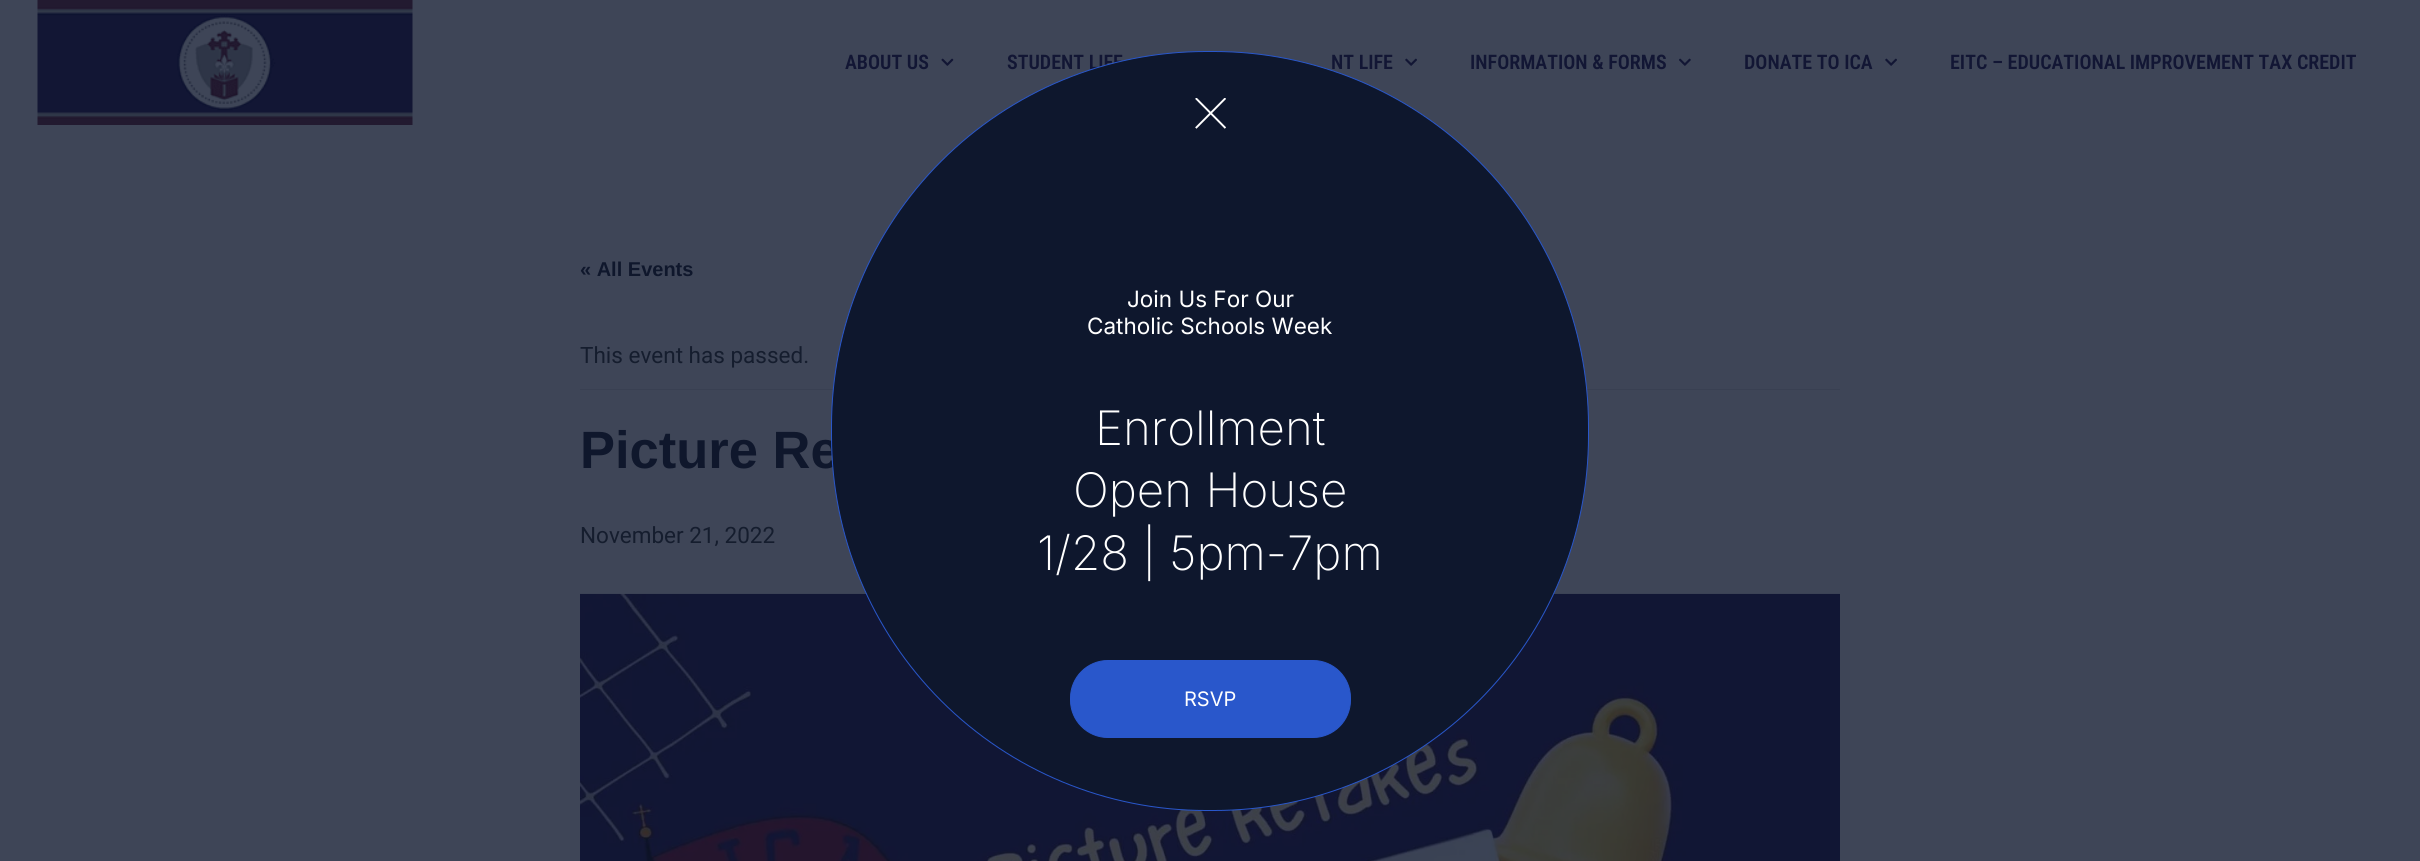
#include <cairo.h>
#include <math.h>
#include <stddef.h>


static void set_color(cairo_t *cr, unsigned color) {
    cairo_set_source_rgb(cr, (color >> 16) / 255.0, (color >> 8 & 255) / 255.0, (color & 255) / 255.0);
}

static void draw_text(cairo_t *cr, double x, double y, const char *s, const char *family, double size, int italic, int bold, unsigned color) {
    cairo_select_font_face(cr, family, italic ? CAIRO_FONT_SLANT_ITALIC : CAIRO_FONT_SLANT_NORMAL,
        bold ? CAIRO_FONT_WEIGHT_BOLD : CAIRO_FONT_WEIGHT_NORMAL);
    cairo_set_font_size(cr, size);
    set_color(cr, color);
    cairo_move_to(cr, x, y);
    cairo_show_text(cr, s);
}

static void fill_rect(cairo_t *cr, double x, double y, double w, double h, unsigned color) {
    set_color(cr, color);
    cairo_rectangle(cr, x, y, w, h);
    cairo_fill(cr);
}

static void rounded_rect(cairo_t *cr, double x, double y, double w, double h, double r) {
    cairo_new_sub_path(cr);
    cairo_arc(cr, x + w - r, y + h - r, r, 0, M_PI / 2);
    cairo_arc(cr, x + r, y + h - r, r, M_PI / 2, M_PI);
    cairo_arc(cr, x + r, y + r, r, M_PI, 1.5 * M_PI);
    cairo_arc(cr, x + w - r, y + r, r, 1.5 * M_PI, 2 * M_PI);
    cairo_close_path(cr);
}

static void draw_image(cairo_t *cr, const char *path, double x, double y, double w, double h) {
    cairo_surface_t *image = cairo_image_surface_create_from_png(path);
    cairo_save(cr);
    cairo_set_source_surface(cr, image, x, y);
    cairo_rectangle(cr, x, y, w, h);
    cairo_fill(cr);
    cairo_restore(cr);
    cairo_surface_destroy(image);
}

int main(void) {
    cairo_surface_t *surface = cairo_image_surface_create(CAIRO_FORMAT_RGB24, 2420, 861);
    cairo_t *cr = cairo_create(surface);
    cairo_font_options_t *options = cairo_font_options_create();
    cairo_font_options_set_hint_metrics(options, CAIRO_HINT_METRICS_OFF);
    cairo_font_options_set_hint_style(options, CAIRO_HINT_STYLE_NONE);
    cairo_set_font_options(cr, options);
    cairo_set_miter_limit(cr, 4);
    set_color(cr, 0x3E4557);
    cairo_paint(cr);
    draw_image(cr, "assets/img1.png", 37, 0, 376, 125);
    draw_text(cr, 845, 69, "ABOUT US", "Roboto Condensed SemiBold", 20, 0, 0, 0x121634);
    draw_image(cr, "assets/img2.png", 941, 58, 13, 8);
    draw_text(cr, 1007, 69, "STUDENT LIFE", "Roboto Condensed SemiBold", 20, 0, 0, 0x121634);
    draw_text(cr, 1331, 69, "NT LIFE", "Roboto Condensed SemiBold", 20, 0, 0, 0x121634);
    draw_image(cr, "assets/img3.png", 1405, 58, 12, 8);
    draw_text(cr, 1470, 69, "INFORMATION & FORMS", "Roboto Condensed SemiBold", 20, 0, 0, 0x121634);
    draw_image(cr, "assets/img4.png", 1679, 58, 12, 8);
    draw_text(cr, 1744, 69, "DONATE TO ICA", "Roboto Condensed SemiBold", 20, 0, 0, 0x121634);
    draw_image(cr, "assets/img3.png", 1885, 58, 12, 8);
    draw_text(cr, 1950, 69, "EITC – EDUCATIONAL IMPROVEMENT TAX CREDIT", "Roboto Condensed SemiBold", 20, 0, 0, 0x121634);
    draw_text(cr, 580, 276, "« All Events", "Liberation Sans", 20, 0, 1, 0x0F172C);
    fill_rect(cr, 580, 389, 1260, 1, 0x394052);
    draw_text(cr, 580, 363, "This event has passed.", "Roboto", 22.5, 0, 0, 0x151D2E);
    draw_text(cr, 580, 468, "Picture Re", "Liberation Sans", 52.5, 0, 1, 0x0F172C);
    draw_text(cr, 580, 543, "November 21, 2022", "Roboto", 22.5, 0, 0, 0x151D2E);
    draw_image(cr, "assets/img5.png", 580, 593, 1260, 268);
    set_color(cr, 0x0E172D);
    rounded_rect(cr, 831.5, 51.5, 757, 759, 374.5);
    cairo_fill_preserve(cr);
    set_color(cr, 0x2957CB);
    cairo_set_line_width(cr, 1);
    cairo_stroke(cr);
    draw_image(cr, "assets/img6.png", 1195, 98, 31, 31);
    draw_text(cr, 1127, 307, "Join Us For Our", "Inter", 22.5, 0, 0, 0xFFFFFF);
    draw_text(cr, 1087, 334, "Catholic Schools Week", "Inter", 22.5, 0, 0, 0xFFFFFF);
    draw_text(cr, 1095, 445, "Enrollment", "Inter ExtraLight", 47.5, 0, 0, 0xFFFFFF);
    draw_text(cr, 1073, 507, "Open House", "Inter ExtraLight", 47.5, 0, 0, 0xFFFFFF);
    draw_text(cr, 1037, 570, "1/28 | 5pm-7pm", "Inter ExtraLight", 47.5, 0, 0, 0xFFFFFF);
    set_color(cr, 0x2957CB);
    rounded_rect(cr, 1070.5, 660.5, 280, 77, 37.5);
    cairo_fill_preserve(cr);
    cairo_stroke(cr);
    draw_text(cr, 1184, 706, "RSVP", "Inter", 20, 0, 0, 0xFFFFFF);
    cairo_surface_write_to_png(surface, "output.png");
    cairo_font_options_destroy(options);
    cairo_destroy(cr);
    cairo_surface_destroy(surface);
    return 0;
}
